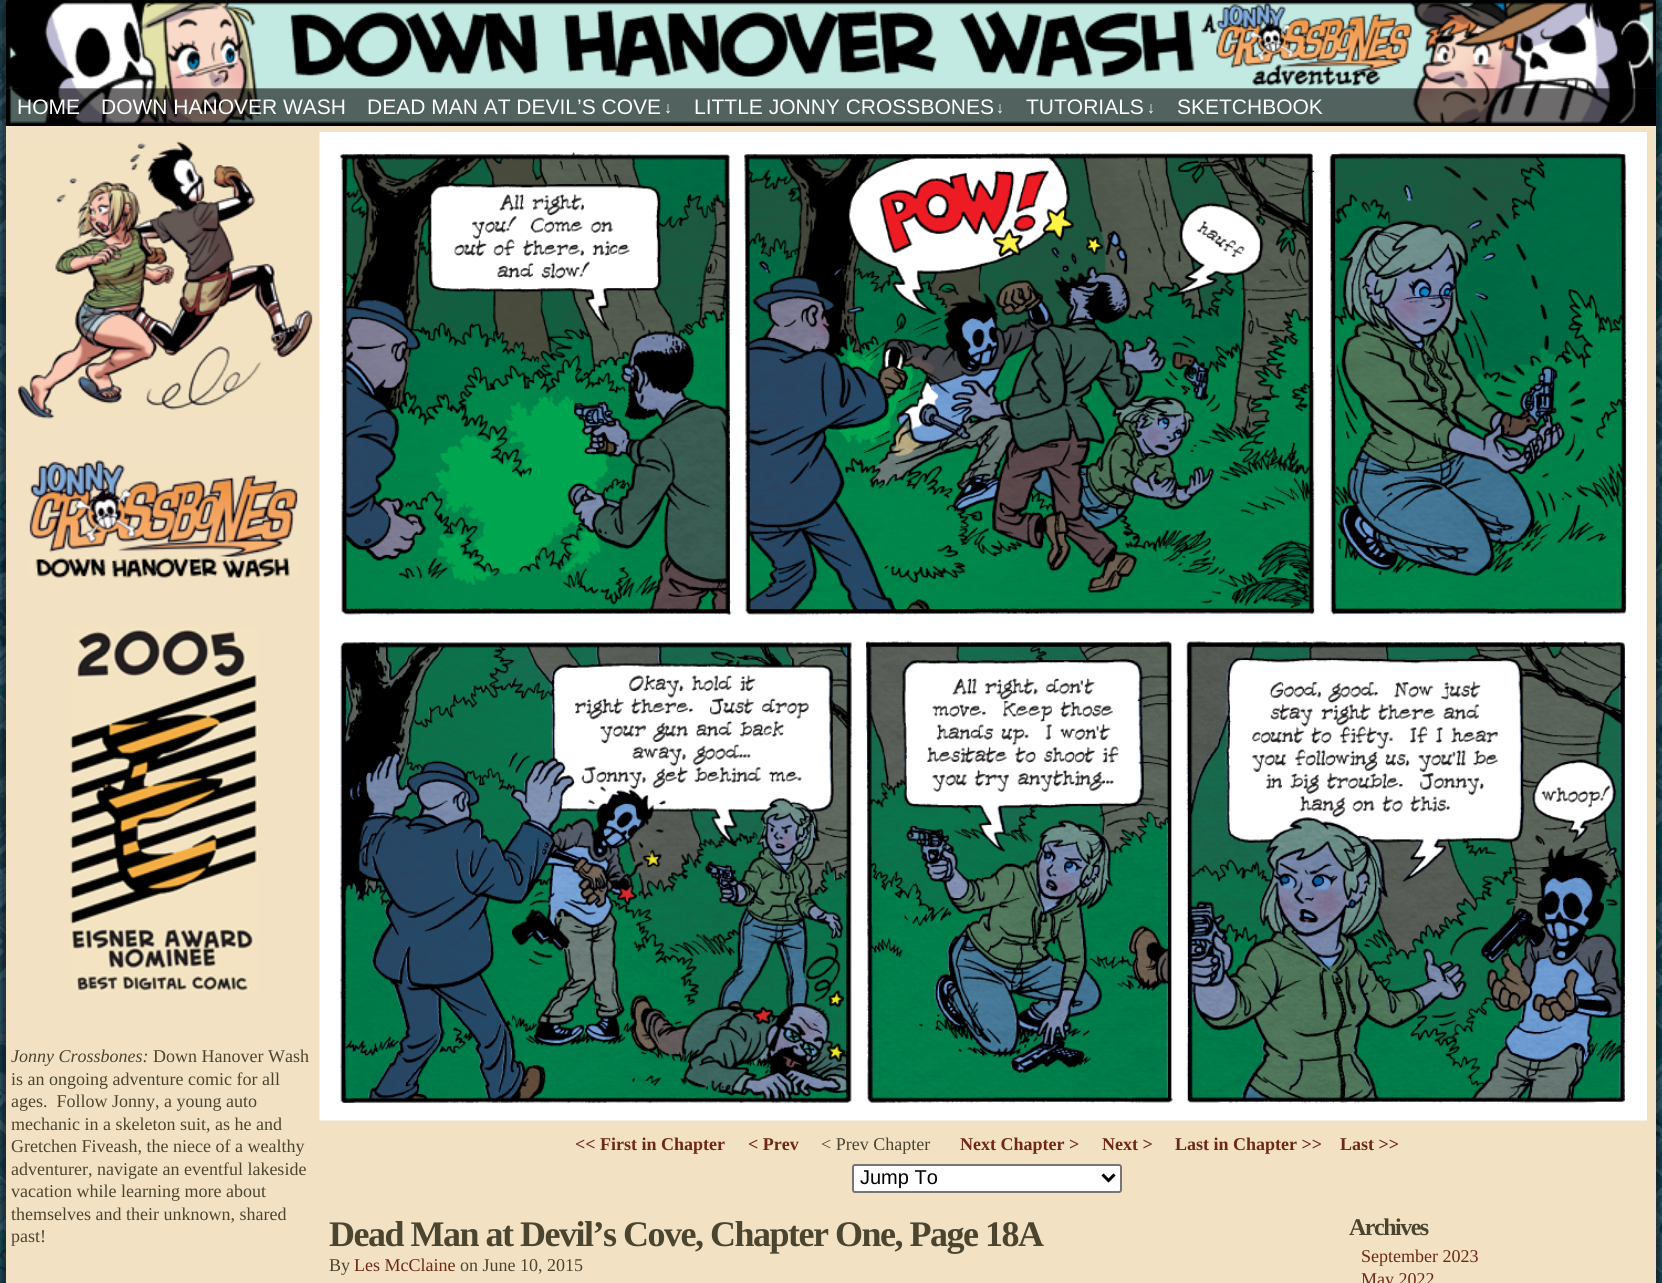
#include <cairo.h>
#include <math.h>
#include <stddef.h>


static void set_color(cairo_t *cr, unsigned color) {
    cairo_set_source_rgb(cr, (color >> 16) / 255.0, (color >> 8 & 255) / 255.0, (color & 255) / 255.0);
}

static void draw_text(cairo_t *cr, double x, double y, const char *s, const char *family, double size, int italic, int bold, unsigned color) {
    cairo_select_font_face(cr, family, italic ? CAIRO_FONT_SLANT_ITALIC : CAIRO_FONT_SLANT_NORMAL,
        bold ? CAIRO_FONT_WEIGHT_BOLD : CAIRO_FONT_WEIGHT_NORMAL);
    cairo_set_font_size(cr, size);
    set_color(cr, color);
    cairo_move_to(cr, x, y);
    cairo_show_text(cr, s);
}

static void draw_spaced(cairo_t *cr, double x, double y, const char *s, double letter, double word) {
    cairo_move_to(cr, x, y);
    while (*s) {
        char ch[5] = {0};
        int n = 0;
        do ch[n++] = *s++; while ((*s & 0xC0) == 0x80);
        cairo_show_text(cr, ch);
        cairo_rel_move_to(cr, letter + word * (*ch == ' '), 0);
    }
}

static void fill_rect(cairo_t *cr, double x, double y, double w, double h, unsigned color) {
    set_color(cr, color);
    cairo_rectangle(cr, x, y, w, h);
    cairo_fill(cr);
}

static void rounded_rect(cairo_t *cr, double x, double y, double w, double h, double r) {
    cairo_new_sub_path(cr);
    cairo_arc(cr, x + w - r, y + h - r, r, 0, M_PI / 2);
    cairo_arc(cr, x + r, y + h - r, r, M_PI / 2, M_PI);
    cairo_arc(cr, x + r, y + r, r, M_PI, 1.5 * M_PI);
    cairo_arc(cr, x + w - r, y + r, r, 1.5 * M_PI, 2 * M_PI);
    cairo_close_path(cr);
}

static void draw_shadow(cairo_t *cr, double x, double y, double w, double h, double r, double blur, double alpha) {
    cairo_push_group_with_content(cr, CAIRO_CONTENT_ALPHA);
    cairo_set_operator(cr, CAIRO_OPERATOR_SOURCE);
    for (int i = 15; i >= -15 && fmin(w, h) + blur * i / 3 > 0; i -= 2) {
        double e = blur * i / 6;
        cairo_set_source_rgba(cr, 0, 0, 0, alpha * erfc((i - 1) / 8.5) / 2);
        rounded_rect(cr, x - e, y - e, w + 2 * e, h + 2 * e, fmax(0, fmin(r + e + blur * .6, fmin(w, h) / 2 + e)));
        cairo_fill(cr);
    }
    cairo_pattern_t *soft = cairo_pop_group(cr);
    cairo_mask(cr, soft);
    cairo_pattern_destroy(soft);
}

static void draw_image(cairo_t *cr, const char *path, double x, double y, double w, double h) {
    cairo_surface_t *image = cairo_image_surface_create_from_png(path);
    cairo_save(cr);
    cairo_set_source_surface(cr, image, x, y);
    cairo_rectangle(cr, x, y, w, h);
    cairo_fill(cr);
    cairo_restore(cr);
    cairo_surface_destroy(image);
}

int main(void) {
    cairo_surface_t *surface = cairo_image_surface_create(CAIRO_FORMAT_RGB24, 1662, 1283);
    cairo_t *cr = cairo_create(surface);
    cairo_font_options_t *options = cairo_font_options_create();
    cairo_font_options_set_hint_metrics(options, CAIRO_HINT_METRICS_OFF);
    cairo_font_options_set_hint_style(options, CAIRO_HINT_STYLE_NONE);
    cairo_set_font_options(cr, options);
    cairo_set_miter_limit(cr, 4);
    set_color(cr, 0xFFFFFF);
    cairo_paint(cr);
    draw_image(cr, "assets/img1.png", 0, 0, 1662, 1283);
    set_color(cr, 0x000000);
    draw_shadow(cr, 6, 0, 1650, 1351, 0, 22.5, 1);
    draw_image(cr, "assets/img3.png", 6, 88, 1650, 38);
    draw_image(cr, "assets/img2.png", 6, 0, 1650, 89);
    draw_text(cr, 17, 114, "HOME", "Liberation Sans", 21, 0, 0, 0xFFFFFF);
    draw_text(cr, 101, 114, "DOWN HANOVER WASH", "Liberation Sans", 21, 0, 0, 0xFFFFFF);
    draw_text(cr, 367, 114, "DEAD MAN AT DEVIL’S COVE", "Liberation Sans", 21, 0, 0, 0xFFFFFF);
    draw_text(cr, 664, 113, "↓", "Liberation Sans", 16, 0, 0, 0xFFFFFF);
    draw_text(cr, 694, 114, "LITTLE JONNY CROSSBONES", "Liberation Sans", 21, 0, 0, 0xFFFFFF);
    draw_text(cr, 996, 113, "↓", "Liberation Sans", 16, 0, 0, 0xFFFFFF);
    draw_text(cr, 1026, 114, "TUTORIALS", "Liberation Sans", 21, 0, 0, 0xFFFFFF);
    draw_text(cr, 1147, 113, "↓", "Liberation Sans", 16, 0, 0, 0xFFFFFF);
    draw_text(cr, 1177, 114, "SKETCHBOOK", "Liberation Sans", 21, 0, 0, 0xFFFFFF);
    fill_rect(cr, 6, 126, 1650, 1157, 0xF2E1C3);
    draw_image(cr, "assets/img4.png", 16, 141, 298, 279);
    draw_image(cr, "assets/img5.png", 29, 460, 269, 118);
    draw_image(cr, "assets/img6.png", 70, 628, 188, 365);
    draw_text(cr, 11, 1062, "Jonny Crossbones:", "Liberation Serif", 18, 1, 0, 0x4B4530);
    draw_text(cr, 153, 1062, "Down Hanover Wash", "Liberation Serif", 18, 0, 0, 0x4B4530);
    draw_text(cr, 11, 1085, "is an ongoing adventure comic for all", "Liberation Serif", 18, 0, 0, 0x4B4530);
    draw_text(cr, 11, 1107, "ages.  Follow Jonny, a young auto", "Liberation Serif", 18, 0, 0, 0x4B4530);
    draw_text(cr, 11, 1130, "mechanic in a skeleton suit, as he and", "Liberation Serif", 18, 0, 0, 0x4B4530);
    draw_text(cr, 11, 1152, "Gretchen Fiveash, the niece of a wealthy", "Liberation Serif", 18, 0, 0, 0x4B4530);
    draw_text(cr, 11, 1175, "adventurer, navigate an eventful lakeside", "Liberation Serif", 18, 0, 0, 0x4B4530);
    draw_text(cr, 11, 1197, "vacation while learning more about", "Liberation Serif", 18, 0, 0, 0x4B4530);
    draw_text(cr, 11, 1220, "themselves and their unknown, shared", "Liberation Serif", 18, 0, 0, 0x4B4530);
    draw_text(cr, 11, 1242, "past!", "Liberation Serif", 18, 0, 0, 0x4B4530);
    draw_image(cr, "assets/img7.png", 319, 132, 1328, 989);
    draw_text(cr, 575, 1150, "<< First in Chapter", "Liberation Serif", 18, 0, 1, 0x6E2815);
    draw_text(cr, 748, 1150, "< Prev", "Liberation Serif", 18, 0, 1, 0x6E2815);
    draw_text(cr, 821, 1150, "< Prev Chapter", "Liberation Serif", 18, 0, 0, 0x4B4530);
    draw_text(cr, 960, 1150, "Next Chapter >", "Liberation Serif", 18, 0, 1, 0x6E2815);
    draw_text(cr, 1102, 1150, "Next >", "Liberation Serif", 18, 0, 1, 0x6E2815);
    draw_text(cr, 1175, 1150, "Last in Chapter >>", "Liberation Serif", 18, 0, 1, 0x6E2815);
    draw_text(cr, 1340, 1150, "Last >>", "Liberation Serif", 18, 0, 1, 0x6E2815);
    set_color(cr, 0xFFFFFF);
    rounded_rect(cr, 853, 1165, 268, 27, 2);
    cairo_fill_preserve(cr);
    set_color(cr, 0x767676);
    cairo_stroke(cr);
    cairo_new_path(cr);
    cairo_move_to(cr, 1102.5, 1174.5);
    cairo_line_to(cr, 1108.5, 1180.5);
    cairo_line_to(cr, 1114.5, 1174.5);
    set_color(cr, 0x000000);
    cairo_set_line_width(cr, 3);
    cairo_stroke(cr);
    draw_text(cr, 860, 1184, "Jump To", "Liberation Sans", 20, 0, 0, 0x000000);
    cairo_select_font_face(cr, "Liberation Serif", CAIRO_FONT_SLANT_NORMAL, CAIRO_FONT_WEIGHT_BOLD);
    cairo_set_font_size(cr, 36);
    set_color(cr, 0x4B4530);
    draw_spaced(cr, 329, 1246, "Dead Man at Devil’s Cove, Chapter One, Page 18A", -1.5, 0);
    draw_text(cr, 329, 1271, "By", "Liberation Serif", 18, 0, 0, 0x4B4530);
    draw_text(cr, 354, 1271, "Les McClaine", "Liberation Serif", 18, 0, 0, 0x6E2815);
    draw_text(cr, 460, 1271, "on June 10, 2015", "Liberation Serif", 18, 0, 0, 0x4B4530);
    cairo_select_font_face(cr, "Liberation Serif", CAIRO_FONT_SLANT_NORMAL, CAIRO_FONT_WEIGHT_BOLD);
    cairo_set_font_size(cr, 24);
    draw_spaced(cr, 1349, 1235, "Archives", -1.5, 0);
    draw_text(cr, 1361, 1262, "September 2023", "Liberation Serif", 18, 0, 0, 0x6E2815);
    draw_text(cr, 1361, 1285, "May 2022", "Liberation Serif", 18, 0, 0, 0x6E2815);
    cairo_surface_write_to_png(surface, "output.png");
    cairo_font_options_destroy(options);
    cairo_destroy(cr);
    cairo_surface_destroy(surface);
    return 0;
}
